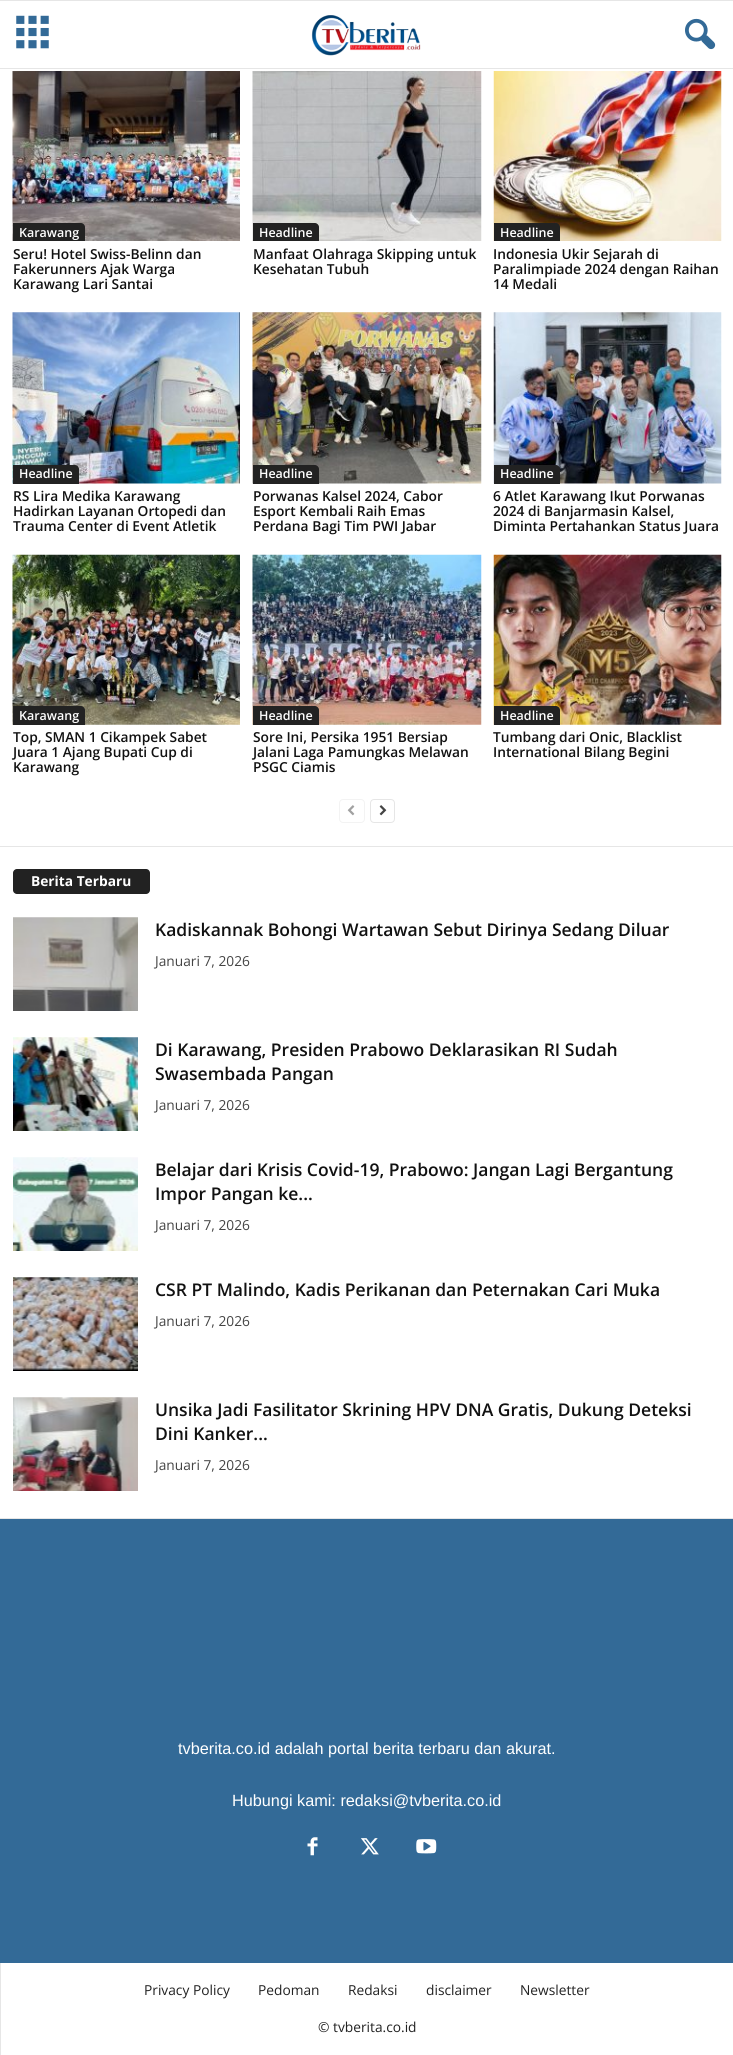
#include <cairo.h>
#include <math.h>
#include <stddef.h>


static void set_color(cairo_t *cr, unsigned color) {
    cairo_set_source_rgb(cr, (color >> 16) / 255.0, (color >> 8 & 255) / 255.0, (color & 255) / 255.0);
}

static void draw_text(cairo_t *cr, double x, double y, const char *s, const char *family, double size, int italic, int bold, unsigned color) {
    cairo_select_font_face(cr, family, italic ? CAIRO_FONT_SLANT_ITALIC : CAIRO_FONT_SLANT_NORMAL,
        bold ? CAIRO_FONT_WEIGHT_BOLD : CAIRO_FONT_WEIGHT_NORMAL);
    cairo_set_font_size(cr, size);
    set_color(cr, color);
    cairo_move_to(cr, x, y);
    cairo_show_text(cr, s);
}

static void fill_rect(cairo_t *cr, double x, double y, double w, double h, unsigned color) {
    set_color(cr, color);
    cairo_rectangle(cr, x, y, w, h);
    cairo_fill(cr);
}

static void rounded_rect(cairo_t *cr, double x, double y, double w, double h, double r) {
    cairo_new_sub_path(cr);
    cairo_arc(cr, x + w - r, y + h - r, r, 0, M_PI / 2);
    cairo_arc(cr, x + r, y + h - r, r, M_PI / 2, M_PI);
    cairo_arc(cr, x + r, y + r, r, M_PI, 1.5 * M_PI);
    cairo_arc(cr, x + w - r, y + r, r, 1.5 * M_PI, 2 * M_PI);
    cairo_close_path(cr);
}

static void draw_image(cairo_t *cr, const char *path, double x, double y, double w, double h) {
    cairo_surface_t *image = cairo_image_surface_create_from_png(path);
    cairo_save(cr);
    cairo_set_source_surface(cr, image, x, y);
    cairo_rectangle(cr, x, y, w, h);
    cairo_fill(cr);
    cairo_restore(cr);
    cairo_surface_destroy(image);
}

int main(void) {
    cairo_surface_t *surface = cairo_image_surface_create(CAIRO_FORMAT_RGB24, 733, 2055);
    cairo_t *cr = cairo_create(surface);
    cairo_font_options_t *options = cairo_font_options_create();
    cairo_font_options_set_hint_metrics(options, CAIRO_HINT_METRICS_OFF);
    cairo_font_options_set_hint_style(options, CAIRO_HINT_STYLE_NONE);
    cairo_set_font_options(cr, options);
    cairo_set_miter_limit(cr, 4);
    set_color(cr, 0xFFFFFF);
    cairo_paint(cr);
    fill_rect(cr, 0, 0, 733, 1, 0xE6E6E6);
    fill_rect(cr, 0, 68, 733, 1, 0xE6E6E6);
    draw_image(cr, "assets/img1.png", 16, 15, 33, 34);
    draw_image(cr, "assets/img2.png", 311, 15, 110, 41);
    draw_image(cr, "assets/img3.png", 685, 18, 31, 32);
    fill_rect(cr, 0, 1518, 733, 1, 0xE6E6E6);
    draw_image(cr, "assets/img4.png", 12, 71, 228, 170);
    set_color(cr, 0x222222);
    cairo_new_path(cr);
    cairo_move_to(cr, 13, 223);
    cairo_line_to(cr, 81, 223);
    cairo_curve_to(cr, 83, 223, 85, 225, 85, 227);
    cairo_line_to(cr, 85, 241);
    cairo_line_to(cr, 13, 241);
    cairo_close_path(cr);
    cairo_fill(cr);
    draw_text(cr, 19, 237, "Karawang", "Open Sans SemiBold", 12.5, 0, 0, 0xFFFFFF);
    draw_text(cr, 13, 259, "Seru! Hotel Swiss-Belinn dan", "Open Sans SemiBold", 13.75, 0, 0, 0x111111);
    draw_text(cr, 13, 274, "Fakerunners Ajak Warga", "Open Sans SemiBold", 13.75, 0, 0, 0x111111);
    draw_text(cr, 13, 289, "Karawang Lari Santai", "Open Sans SemiBold", 13.75, 0, 0, 0x111111);
    draw_image(cr, "assets/img5.png", 252, 71, 230, 170);
    set_color(cr, 0x222222);
    cairo_new_path(cr);
    cairo_move_to(cr, 253, 223);
    cairo_line_to(cr, 315, 223);
    cairo_curve_to(cr, 317, 223, 319, 225, 319, 227);
    cairo_line_to(cr, 319, 241);
    cairo_line_to(cr, 253, 241);
    cairo_close_path(cr);
    cairo_fill(cr);
    draw_text(cr, 259, 237, "Headline", "Open Sans SemiBold", 12.5, 0, 0, 0xFFFFFF);
    draw_text(cr, 253, 259, "Manfaat Olahraga Skipping untuk", "Open Sans SemiBold", 13.75, 0, 0, 0x111111);
    draw_text(cr, 253, 274, "Kesehatan Tubuh", "Open Sans SemiBold", 13.75, 0, 0, 0x111111);
    draw_image(cr, "assets/img6.png", 493, 71, 229, 170);
    set_color(cr, 0x222222);
    cairo_new_path(cr);
    cairo_move_to(cr, 494, 223);
    cairo_line_to(cr, 556, 223);
    cairo_curve_to(cr, 558, 223, 560, 225, 560, 227);
    cairo_line_to(cr, 560, 241);
    cairo_line_to(cr, 494, 241);
    cairo_close_path(cr);
    cairo_fill(cr);
    draw_text(cr, 500, 237, "Headline", "Open Sans SemiBold", 12.5, 0, 0, 0xFFFFFF);
    draw_text(cr, 493, 259, "Indonesia Ukir Sejarah di", "Open Sans SemiBold", 13.75, 0, 0, 0x111111);
    draw_text(cr, 493, 274, "Paralimpiade 2024 dengan Raihan", "Open Sans SemiBold", 13.75, 0, 0, 0x111111);
    draw_text(cr, 493, 289, "14 Medali", "Open Sans SemiBold", 13.75, 0, 0, 0x111111);
    draw_image(cr, "assets/img7.png", 12, 312, 228, 172);
    set_color(cr, 0x222222);
    cairo_new_path(cr);
    cairo_move_to(cr, 13, 465);
    cairo_line_to(cr, 75, 465);
    cairo_curve_to(cr, 77, 465, 79, 467, 79, 469);
    cairo_line_to(cr, 79, 484);
    cairo_line_to(cr, 13, 484);
    cairo_close_path(cr);
    cairo_fill(cr);
    draw_text(cr, 19, 478, "Headline", "Open Sans SemiBold", 12.5, 0, 0, 0xFFFFFF);
    draw_text(cr, 13, 501, "RS Lira Medika Karawang", "Open Sans SemiBold", 13.75, 0, 0, 0x111111);
    draw_text(cr, 13, 516, "Hadirkan Layanan Ortopedi dan", "Open Sans SemiBold", 13.75, 0, 0, 0x111111);
    draw_text(cr, 13, 531, "Trauma Center di Event Atletik", "Open Sans SemiBold", 13.75, 0, 0, 0x111111);
    draw_image(cr, "assets/img8.png", 252, 312, 230, 172);
    set_color(cr, 0x222222);
    cairo_new_path(cr);
    cairo_move_to(cr, 253, 465);
    cairo_line_to(cr, 315, 465);
    cairo_curve_to(cr, 317, 465, 319, 467, 319, 469);
    cairo_line_to(cr, 319, 484);
    cairo_line_to(cr, 253, 484);
    cairo_close_path(cr);
    cairo_fill(cr);
    draw_text(cr, 259, 478, "Headline", "Open Sans SemiBold", 12.5, 0, 0, 0xFFFFFF);
    draw_text(cr, 253, 501, "Porwanas Kalsel 2024, Cabor", "Open Sans SemiBold", 13.75, 0, 0, 0x111111);
    draw_text(cr, 253, 516, "Esport Kembali Raih Emas", "Open Sans SemiBold", 13.75, 0, 0, 0x111111);
    draw_text(cr, 253, 531, "Perdana Bagi Tim PWI Jabar", "Open Sans SemiBold", 13.75, 0, 0, 0x111111);
    draw_image(cr, "assets/img9.png", 493, 312, 229, 172);
    set_color(cr, 0x222222);
    cairo_new_path(cr);
    cairo_move_to(cr, 494, 465);
    cairo_line_to(cr, 556, 465);
    cairo_curve_to(cr, 558, 465, 560, 467, 560, 469);
    cairo_line_to(cr, 560, 484);
    cairo_line_to(cr, 494, 484);
    cairo_close_path(cr);
    cairo_fill(cr);
    draw_text(cr, 500, 478, "Headline", "Open Sans SemiBold", 12.5, 0, 0, 0xFFFFFF);
    draw_text(cr, 493, 501, "6 Atlet Karawang Ikut Porwanas", "Open Sans SemiBold", 13.75, 0, 0, 0x111111);
    draw_text(cr, 493, 516, "2024 di Banjarmasin Kalsel,", "Open Sans SemiBold", 13.75, 0, 0, 0x111111);
    draw_text(cr, 493, 531, "Diminta Pertahankan Status Juara", "Open Sans SemiBold", 13.75, 0, 0, 0x111111);
    draw_image(cr, "assets/img10.png", 12, 554, 228, 171);
    set_color(cr, 0x222222);
    cairo_new_path(cr);
    cairo_move_to(cr, 13, 706);
    cairo_line_to(cr, 81, 706);
    cairo_curve_to(cr, 83, 706, 85, 708, 85, 710);
    cairo_line_to(cr, 85, 725);
    cairo_line_to(cr, 13, 725);
    cairo_close_path(cr);
    cairo_fill(cr);
    draw_text(cr, 19, 720, "Karawang", "Open Sans SemiBold", 12.5, 0, 0, 0xFFFFFF);
    draw_text(cr, 13, 742, "Top, SMAN 1 Cikampek Sabet", "Open Sans SemiBold", 13.75, 0, 0, 0x111111);
    draw_text(cr, 13, 757, "Juara 1 Ajang Bupati Cup di", "Open Sans SemiBold", 13.75, 0, 0, 0x111111);
    draw_text(cr, 13, 772, "Karawang", "Open Sans SemiBold", 13.75, 0, 0, 0x111111);
    draw_image(cr, "assets/img11.png", 252, 554, 230, 171);
    set_color(cr, 0x222222);
    cairo_new_path(cr);
    cairo_move_to(cr, 253, 706);
    cairo_line_to(cr, 315, 706);
    cairo_curve_to(cr, 317, 706, 319, 708, 319, 710);
    cairo_line_to(cr, 319, 725);
    cairo_line_to(cr, 253, 725);
    cairo_close_path(cr);
    cairo_fill(cr);
    draw_text(cr, 259, 720, "Headline", "Open Sans SemiBold", 12.5, 0, 0, 0xFFFFFF);
    draw_text(cr, 253, 742, "Sore Ini, Persika 1951 Bersiap", "Open Sans SemiBold", 13.75, 0, 0, 0x111111);
    draw_text(cr, 253, 757, "Jalani Laga Pamungkas Melawan", "Open Sans SemiBold", 13.75, 0, 0, 0x111111);
    draw_text(cr, 253, 772, "PSGC Ciamis", "Open Sans SemiBold", 13.75, 0, 0, 0x111111);
    draw_image(cr, "assets/img12.png", 493, 554, 229, 171);
    set_color(cr, 0x222222);
    cairo_new_path(cr);
    cairo_move_to(cr, 494, 706);
    cairo_line_to(cr, 556, 706);
    cairo_curve_to(cr, 558, 706, 560, 708, 560, 710);
    cairo_line_to(cr, 560, 725);
    cairo_line_to(cr, 494, 725);
    cairo_close_path(cr);
    cairo_fill(cr);
    draw_text(cr, 500, 720, "Headline", "Open Sans SemiBold", 12.5, 0, 0, 0xFFFFFF);
    draw_text(cr, 493, 742, "Tumbang dari Onic, Blacklist", "Open Sans SemiBold", 13.75, 0, 0, 0x111111);
    draw_text(cr, 493, 757, "International Bilang Begini", "Open Sans SemiBold", 13.75, 0, 0, 0x111111);
    rounded_rect(cr, 339.5, 799.5, 25, 23, 3.5);
    set_color(cr, 0xF3F3F3);
    cairo_set_line_width(cr, 1);
    cairo_stroke(cr);
    draw_image(cr, "assets/img13.png", 347, 805, 8, 11);
    rounded_rect(cr, 370.5, 799.5, 24, 23, 3.5);
    set_color(cr, 0xE6E6E6);
    cairo_stroke(cr);
    draw_image(cr, "assets/img14.png", 379, 805, 8, 11);
    fill_rect(cr, 0, 846, 733, 1, 0xE6E6E6);
    set_color(cr, 0x222222);
    rounded_rect(cr, 13, 869, 137, 25, 4);
    cairo_fill(cr);
    draw_text(cr, 31, 886, "Berita Terbaru", "Open Sans", 13.75, 0, 1, 0xFFFFFF);
    draw_image(cr, "assets/img15.png", 13, 917, 125, 94);
    draw_text(cr, 155, 936, "Kadiskannak Bohongi Wartawan Sebut Dirinya Sedang Diluar", "Open Sans SemiBold", 17.5, 0, 0, 0x111111);
    draw_text(cr, 155, 966, "Januari 7, 2026", "Open Sans", 13.75, 0, 0, 0x444444);
    draw_image(cr, "assets/img16.png", 13, 1037, 125, 94);
    draw_text(cr, 155, 1056, "Di Karawang, Presiden Prabowo Deklarasikan RI Sudah", "Open Sans SemiBold", 17.5, 0, 0, 0x111111);
    draw_text(cr, 155, 1080, "Swasembada Pangan", "Open Sans SemiBold", 17.5, 0, 0, 0x111111);
    draw_text(cr, 155, 1110, "Januari 7, 2026", "Open Sans", 13.75, 0, 0, 0x444444);
    draw_image(cr, "assets/img17.png", 13, 1157, 125, 94);
    draw_text(cr, 155, 1176, "Belajar dari Krisis Covid-19, Prabowo: Jangan Lagi Bergantung", "Open Sans SemiBold", 17.5, 0, 0, 0x111111);
    draw_text(cr, 155, 1200, "Impor Pangan ke...", "Open Sans SemiBold", 17.5, 0, 0, 0x111111);
    draw_text(cr, 155, 1230, "Januari 7, 2026", "Open Sans", 13.75, 0, 0, 0x444444);
    draw_image(cr, "assets/img18.png", 13, 1277, 125, 94);
    draw_text(cr, 155, 1296, "CSR PT Malindo, Kadis Perikanan dan Peternakan Cari Muka", "Open Sans SemiBold", 17.5, 0, 0, 0x111111);
    draw_text(cr, 155, 1326, "Januari 7, 2026", "Open Sans", 13.75, 0, 0, 0x444444);
    draw_image(cr, "assets/img19.png", 13, 1397, 125, 94);
    draw_text(cr, 155, 1416, "Unsika Jadi Fasilitator Skrining HPV DNA Gratis, Dukung Deteksi", "Open Sans SemiBold", 17.5, 0, 0, 0x111111);
    draw_text(cr, 155, 1440, "Dini Kanker...", "Open Sans SemiBold", 17.5, 0, 0, 0x111111);
    draw_text(cr, 155, 1470, "Januari 7, 2026", "Open Sans", 13.75, 0, 0, 0x444444);
    fill_rect(cr, 0, 1519, 733, 444, 0x336A97);
    draw_text(cr, 178, 1754, "tvberita.co.id adalah portal berita terbaru dan akurat.", "Liberation Sans", 16.25, 0, 0, 0xFFFFFF);
    draw_text(cr, 232, 1806, "Hubungi kami: redaksi@tvberita.co.id", "Liberation Sans", 16.25, 0, 0, 0xFFFFFF);
    draw_image(cr, "assets/img20.png", 307, 1837, 11, 19);
    draw_image(cr, "assets/img21.png", 361, 1838, 18, 17);
    draw_image(cr, "assets/img22.png", 416, 1839, 21, 15);
    fill_rect(cr, 0, 1963, 1, 92, 0xE6E6E6);
    draw_text(cr, 144, 1995, "Privacy Policy", "Open Sans", 13.75, 0, 0, 0x222222);
    draw_text(cr, 258, 1995, "Pedoman", "Open Sans", 13.75, 0, 0, 0x222222);
    draw_text(cr, 348, 1995, "Redaksi", "Open Sans", 13.75, 0, 0, 0x222222);
    draw_text(cr, 426, 1995, "disclaimer", "Open Sans", 13.75, 0, 0, 0x222222);
    draw_text(cr, 520, 1995, "Newsletter", "Open Sans", 13.75, 0, 0, 0x222222);
    draw_text(cr, 318, 2032, "© tvberita.co.id", "Open Sans", 13.75, 0, 0, 0x222222);
    cairo_surface_write_to_png(surface, "output.png");
    cairo_font_options_destroy(options);
    cairo_destroy(cr);
    cairo_surface_destroy(surface);
    return 0;
}
